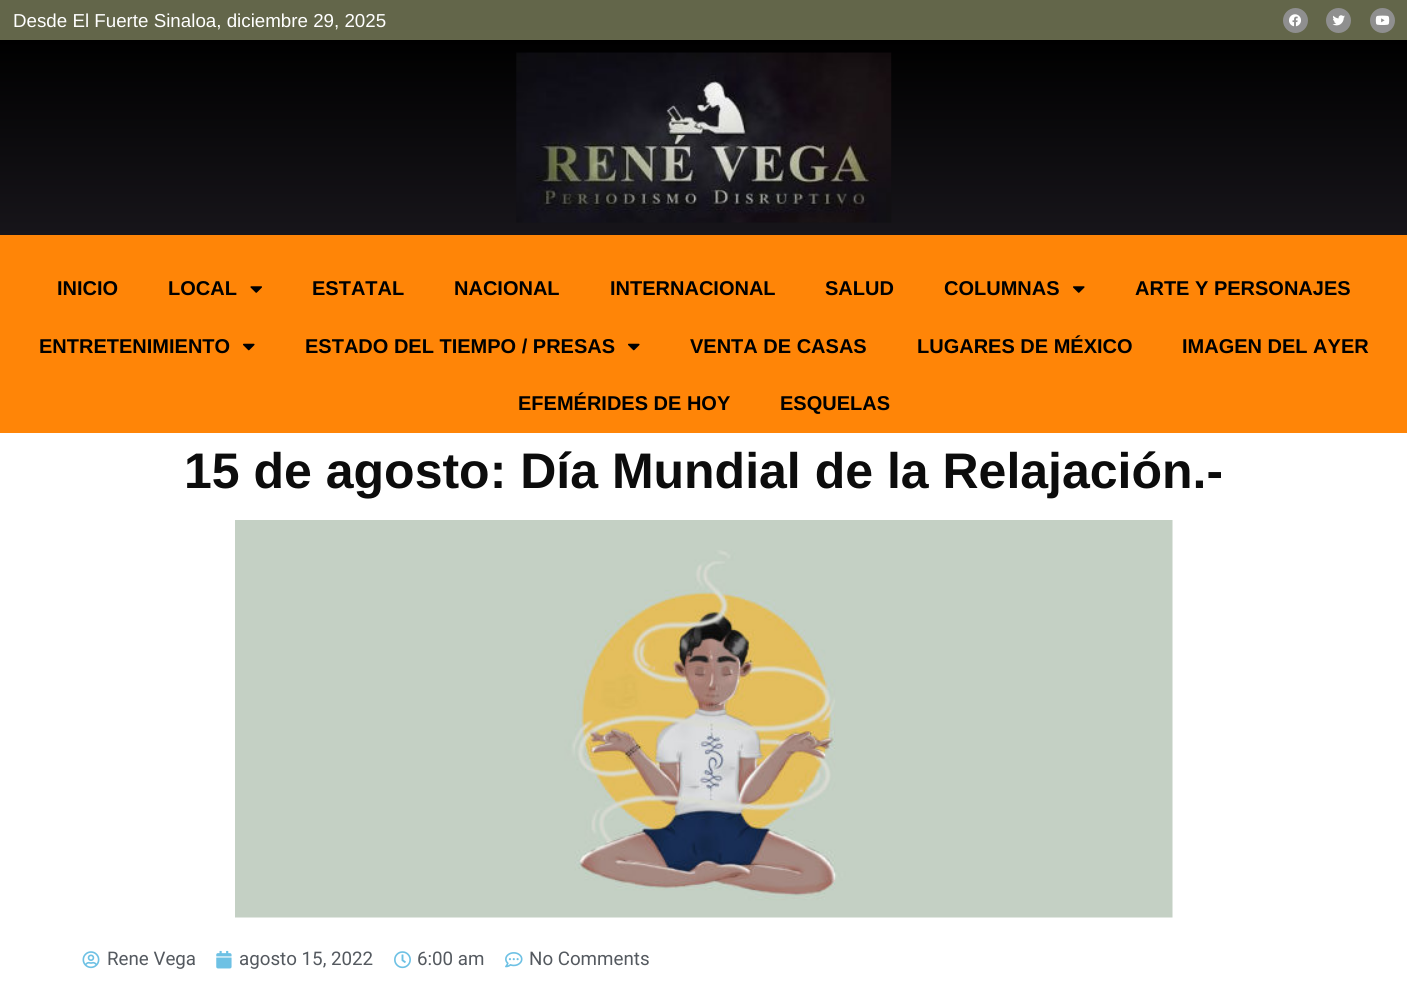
#include <cairo.h>
#include <math.h>
#include <stddef.h>


static void set_color(cairo_t *cr, unsigned color) {
    cairo_set_source_rgb(cr, (color >> 16) / 255.0, (color >> 8 & 255) / 255.0, (color & 255) / 255.0);
}

static void draw_text(cairo_t *cr, double x, double y, const char *s, const char *family, double size, int italic, int bold, unsigned color) {
    cairo_select_font_face(cr, family, italic ? CAIRO_FONT_SLANT_ITALIC : CAIRO_FONT_SLANT_NORMAL,
        bold ? CAIRO_FONT_WEIGHT_BOLD : CAIRO_FONT_WEIGHT_NORMAL);
    cairo_set_font_size(cr, size);
    set_color(cr, color);
    cairo_move_to(cr, x, y);
    cairo_show_text(cr, s);
}

static void fill_rect(cairo_t *cr, double x, double y, double w, double h, unsigned color) {
    set_color(cr, color);
    cairo_rectangle(cr, x, y, w, h);
    cairo_fill(cr);
}

static void draw_image(cairo_t *cr, const char *path, double x, double y, double w, double h) {
    cairo_surface_t *image = cairo_image_surface_create_from_png(path);
    cairo_save(cr);
    cairo_set_source_surface(cr, image, x, y);
    cairo_rectangle(cr, x, y, w, h);
    cairo_fill(cr);
    cairo_restore(cr);
    cairo_surface_destroy(image);
}

int main(void) {
    cairo_surface_t *surface = cairo_image_surface_create(CAIRO_FORMAT_RGB24, 1407, 987);
    cairo_t *cr = cairo_create(surface);
    cairo_font_options_t *options = cairo_font_options_create();
    cairo_font_options_set_hint_metrics(options, CAIRO_HINT_METRICS_OFF);
    cairo_font_options_set_hint_style(options, CAIRO_HINT_STYLE_NONE);
    cairo_set_font_options(cr, options);
    cairo_set_miter_limit(cr, 4);
    cairo_pattern_t *gradient;
    set_color(cr, 0xFFFFFF);
    cairo_paint(cr);
    fill_rect(cr, 0, 0, 1407, 40, 0x63664A);
    draw_text(cr, 13, 27, "Desde El Fuerte Sinaloa, diciembre 29, 2025", "Liberation Sans", 18.75, 0, 0, 0xFFFFFF);
    set_color(cr, 0x8F8F8F);
    cairo_new_path(cr);
    cairo_arc(cr, 1295.5, 20.5, 12.5, 0, 2 * M_PI);
    cairo_fill(cr);
    draw_image(cr, "assets/img1.png", 1289, 14, 12, 13);
    cairo_arc(cr, 1338.5, 20.5, 12.5, 0, 2 * M_PI);
    cairo_fill(cr);
    draw_image(cr, "assets/img2.png", 1332, 15, 13, 11);
    cairo_arc(cr, 1382.5, 20.5, 12.5, 0, 2 * M_PI);
    cairo_fill(cr);
    draw_image(cr, "assets/img3.png", 1375, 15, 15, 10);
    gradient = cairo_pattern_create_linear(704, 40, 704, 235);
    cairo_pattern_add_color_stop_rgba(gradient, 0, 0, 0, 0, 1);
    cairo_pattern_add_color_stop_rgba(gradient, 1, 0.09, 0.082, 0.102, 1);
    cairo_set_source(cr, gradient);
    cairo_pattern_destroy(gradient);
    cairo_rectangle(cr, 0, 40, 1407, 195);
    cairo_fill(cr);
    draw_image(cr, "assets/img4.png", 516, 52, 376, 171);
    fill_rect(cr, 0, 235, 1407, 198, 0xFF8507);
    draw_text(cr, 57, 295, "INICIO", "Liberation Sans", 20, 0, 1, 0x000000);
    draw_text(cr, 168, 295, "LOCAL", "Liberation Sans", 20, 0, 1, 0x000000);
    draw_image(cr, "assets/img5.png", 250, 286, 12, 7);
    draw_text(cr, 312, 295, "ESTATAL", "Liberation Sans", 20, 0, 1, 0x000000);
    draw_text(cr, 454, 295, "NACIONAL", "Liberation Sans", 20, 0, 1, 0x000000);
    draw_text(cr, 610, 295, "INTERNACIONAL", "Liberation Sans", 20, 0, 1, 0x000000);
    draw_text(cr, 825, 295, "SALUD", "Liberation Sans", 20, 0, 1, 0x000000);
    draw_text(cr, 944, 295, "COLUMNAS", "Liberation Sans", 20, 0, 1, 0x000000);
    draw_image(cr, "assets/img6.png", 1073, 286, 12, 7);
    draw_text(cr, 1135, 295, "ARTE Y PERSONAJES", "Liberation Sans", 20, 0, 1, 0x000000);
    draw_text(cr, 39, 353, "ENTRETENIMIENTO", "Liberation Sans", 20, 0, 1, 0x000000);
    draw_image(cr, "assets/img7.png", 243, 343, 12, 8);
    draw_text(cr, 305, 353, "ESTADO DEL TIEMPO / PRESAS", "Liberation Sans", 20, 0, 1, 0x000000);
    draw_image(cr, "assets/img7.png", 628, 343, 12, 8);
    draw_text(cr, 690, 353, "VENTA DE CASAS", "Liberation Sans", 20, 0, 1, 0x000000);
    draw_text(cr, 917, 353, "LUGARES DE MÉXICO", "Liberation Sans", 20, 0, 1, 0x000000);
    draw_text(cr, 1182, 353, "IMAGEN DEL AYER", "Liberation Sans", 20, 0, 1, 0x000000);
    draw_text(cr, 518, 410, "EFEMÉRIDES DE HOY", "Liberation Sans", 20, 0, 1, 0x000000);
    draw_text(cr, 780, 410, "ESQUELAS", "Liberation Sans", 20, 0, 1, 0x000000);
    draw_text(cr, 184, 488, "15 de agosto: Día Mundial de la Relajación.-", "Liberation Sans", 50, 0, 1, 0x0C0C0C);
    draw_image(cr, "assets/img8.png", 235, 520, 938, 398);
    draw_image(cr, "assets/img9.png", 82, 951, 18, 18);
    draw_text(cr, 107, 965, "Rene Vega", "Roboto", 18.75, 0, 0, 0x54595F);
    draw_image(cr, "assets/img10.png", 216, 950, 16, 19);
    draw_text(cr, 239, 965, "agosto 15, 2022", "Roboto", 18.75, 0, 0, 0x54595F);
    draw_image(cr, "assets/img11.png", 394, 951, 17, 18);
    draw_text(cr, 417, 965, "6:00 am", "Roboto", 18.75, 0, 0, 0x54595F);
    draw_image(cr, "assets/img12.png", 505, 952, 18, 16);
    draw_text(cr, 529, 965, "No Comments", "Roboto", 18.75, 0, 0, 0x54595F);
    cairo_surface_write_to_png(surface, "output.png");
    cairo_font_options_destroy(options);
    cairo_destroy(cr);
    cairo_surface_destroy(surface);
    return 0;
}
